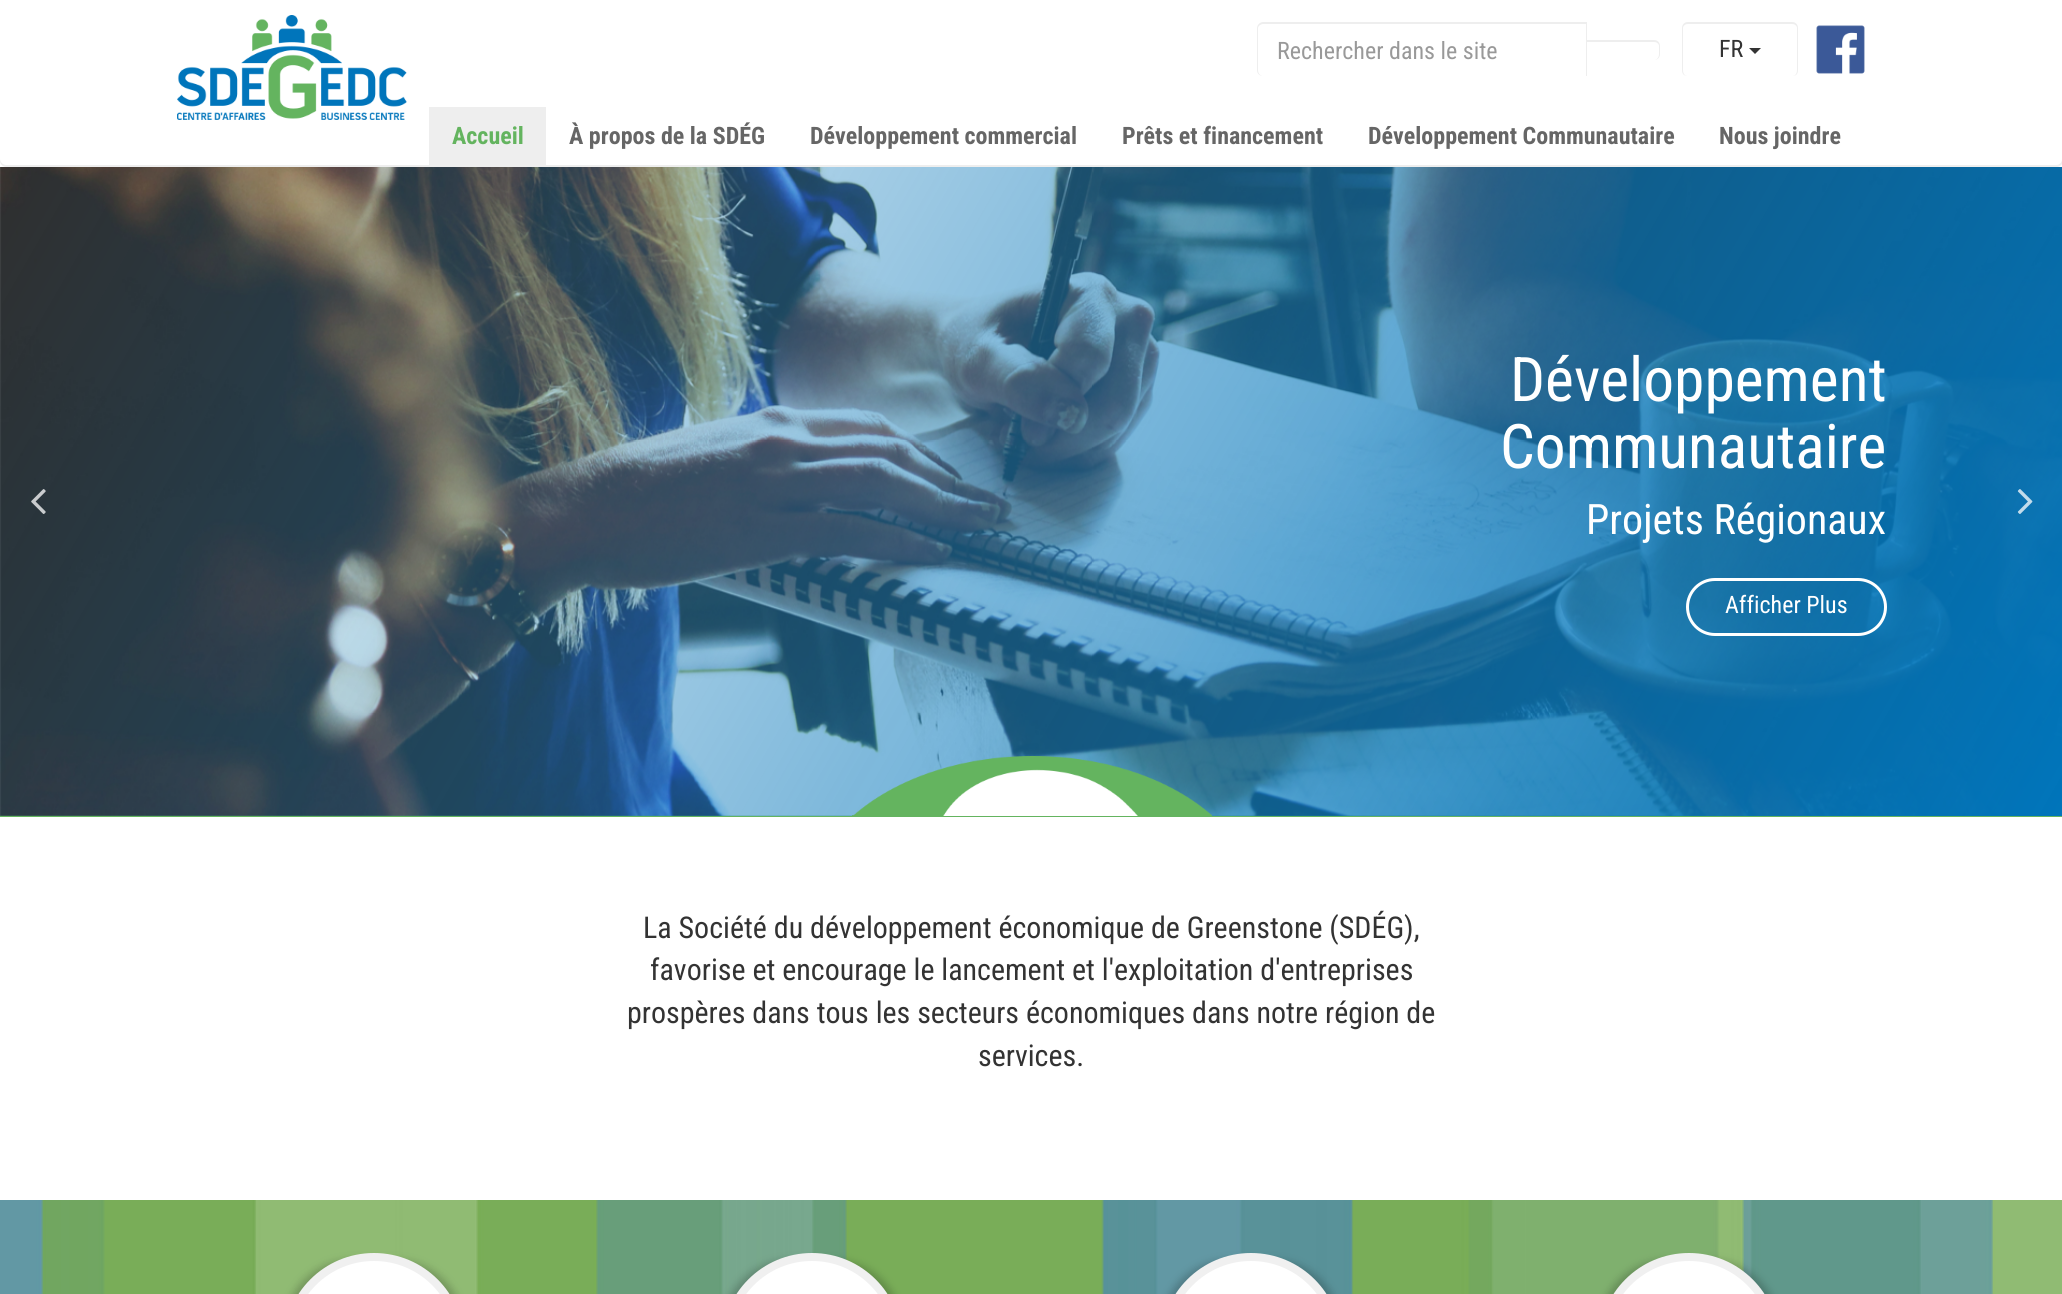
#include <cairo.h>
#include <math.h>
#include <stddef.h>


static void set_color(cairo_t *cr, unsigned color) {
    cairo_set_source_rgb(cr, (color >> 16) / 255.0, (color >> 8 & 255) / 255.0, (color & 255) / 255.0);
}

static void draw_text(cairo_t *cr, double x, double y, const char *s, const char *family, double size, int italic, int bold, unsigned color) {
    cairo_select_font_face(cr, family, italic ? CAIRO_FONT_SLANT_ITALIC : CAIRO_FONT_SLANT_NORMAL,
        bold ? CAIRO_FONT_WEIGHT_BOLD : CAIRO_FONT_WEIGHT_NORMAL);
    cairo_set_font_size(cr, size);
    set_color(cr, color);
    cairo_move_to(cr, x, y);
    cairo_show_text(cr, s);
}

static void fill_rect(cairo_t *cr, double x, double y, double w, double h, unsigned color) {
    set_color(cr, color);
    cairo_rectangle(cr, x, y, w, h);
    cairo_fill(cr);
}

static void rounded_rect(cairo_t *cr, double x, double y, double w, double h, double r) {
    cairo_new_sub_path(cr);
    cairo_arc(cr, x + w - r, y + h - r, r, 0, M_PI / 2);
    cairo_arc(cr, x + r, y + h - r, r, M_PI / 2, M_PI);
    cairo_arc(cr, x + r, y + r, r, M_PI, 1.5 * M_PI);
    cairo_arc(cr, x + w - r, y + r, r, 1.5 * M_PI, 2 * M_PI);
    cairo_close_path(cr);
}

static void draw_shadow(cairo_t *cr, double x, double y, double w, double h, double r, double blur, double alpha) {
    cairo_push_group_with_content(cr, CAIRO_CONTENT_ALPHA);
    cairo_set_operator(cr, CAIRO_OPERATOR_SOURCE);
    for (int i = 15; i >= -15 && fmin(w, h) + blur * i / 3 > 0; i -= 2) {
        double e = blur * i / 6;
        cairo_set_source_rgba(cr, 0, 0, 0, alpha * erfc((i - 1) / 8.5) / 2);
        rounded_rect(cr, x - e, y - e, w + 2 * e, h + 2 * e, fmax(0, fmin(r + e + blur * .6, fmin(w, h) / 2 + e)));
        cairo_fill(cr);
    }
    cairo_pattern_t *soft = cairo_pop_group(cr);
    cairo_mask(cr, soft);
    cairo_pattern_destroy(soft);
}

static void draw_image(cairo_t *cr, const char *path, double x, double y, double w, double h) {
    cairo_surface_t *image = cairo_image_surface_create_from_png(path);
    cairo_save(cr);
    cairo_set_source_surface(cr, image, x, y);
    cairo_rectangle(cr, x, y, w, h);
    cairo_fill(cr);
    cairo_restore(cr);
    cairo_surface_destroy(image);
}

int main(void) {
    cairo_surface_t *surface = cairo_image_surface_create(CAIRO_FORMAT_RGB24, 2062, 1294);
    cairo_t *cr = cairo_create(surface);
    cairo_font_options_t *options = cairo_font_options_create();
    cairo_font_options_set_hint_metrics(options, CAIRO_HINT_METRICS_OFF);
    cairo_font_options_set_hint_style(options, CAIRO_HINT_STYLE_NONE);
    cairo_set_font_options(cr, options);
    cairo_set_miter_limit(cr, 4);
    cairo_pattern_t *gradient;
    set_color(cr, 0xFFFFFF);
    cairo_paint(cr);
    set_color(cr, 0xEEEEEE);
    cairo_new_path(cr);
    cairo_move_to(cr, 0, 159);
    cairo_line_to(cr, 0, 161);
    cairo_curve_to(cr, 0, 164, 3, 167, 6, 167);
    cairo_line_to(cr, 2057, 167);
    cairo_curve_to(cr, 2060, 167, 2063, 164, 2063, 161);
    cairo_line_to(cr, 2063, 6);
    cairo_curve_to(cr, 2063, 5, 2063, 3, 2062, 2);
    cairo_line_to(cr, 2062, 159);
    cairo_curve_to(cr, 2062, 162, 2060, 165, 2056, 165);
    cairo_line_to(cr, 6, 165);
    cairo_curve_to(cr, 3, 165, 0, 162, 0, 159);
    cairo_close_path(cr);
    cairo_fill(cr);
    draw_image(cr, "assets/img1.png", 177, 15, 230, 105);
    cairo_set_fill_rule(cr, CAIRO_FILL_RULE_EVEN_ODD);
    cairo_new_path(cr);
    cairo_move_to(cr, 1263, 22);
    cairo_line_to(cr, 1587, 22);
    cairo_line_to(cr, 1587, 76);
    cairo_line_to(cr, 1263, 76);
    cairo_curve_to(cr, 1260, 76, 1257, 74, 1257, 70);
    cairo_line_to(cr, 1257, 28);
    cairo_curve_to(cr, 1257, 25, 1260, 22, 1263, 22);
    cairo_close_path(cr);
    cairo_move_to(cr, 1263, 24);
    cairo_line_to(cr, 1586, 24);
    cairo_line_to(cr, 1586, 76);
    cairo_line_to(cr, 1263, 76);
    cairo_curve_to(cr, 1261, 76, 1258, 74, 1258, 70);
    cairo_line_to(cr, 1258, 28);
    cairo_curve_to(cr, 1258, 26, 1261, 24, 1263, 24);
    cairo_close_path(cr);
    cairo_fill(cr);
    draw_text(cr, 1277, 59, "Rechercher dans le site", "Roboto Condensed", 24, 0, 0, 0x999999);
    set_color(cr, 0xFFFFFF);
    cairo_new_path(cr);
    cairo_move_to(cr, 1586, 41);
    cairo_line_to(cr, 1655, 41);
    cairo_curve_to(cr, 1658.5, 41, 1661, 43.5, 1661, 47);
    cairo_line_to(cr, 1661, 54);
    cairo_curve_to(cr, 1661, 57.5, 1658.5, 60, 1655, 60);
    cairo_line_to(cr, 1586, 60);
    cairo_close_path(cr);
    cairo_fill(cr);
    set_color(cr, 0xEEEEEE);
    cairo_new_path(cr);
    cairo_move_to(cr, 1586, 40);
    cairo_line_to(cr, 1654, 40);
    cairo_curve_to(cr, 1658, 40, 1660, 43, 1660, 46);
    cairo_line_to(cr, 1660, 54);
    cairo_curve_to(cr, 1660, 57, 1658, 60, 1654, 60);
    cairo_line_to(cr, 1586, 60);
    cairo_close_path(cr);
    cairo_move_to(cr, 1587, 42);
    cairo_line_to(cr, 1654, 42);
    cairo_curve_to(cr, 1657, 42, 1659, 44, 1659, 46);
    cairo_line_to(cr, 1659, 54);
    cairo_curve_to(cr, 1659, 57, 1657, 60, 1654, 60);
    cairo_line_to(cr, 1587, 60);
    cairo_close_path(cr);
    cairo_fill(cr);
    cairo_new_path(cr);
    cairo_move_to(cr, 1688, 22);
    cairo_line_to(cr, 1792, 22);
    cairo_curve_to(cr, 1796, 22, 1798, 25, 1798, 28);
    cairo_line_to(cr, 1798, 70);
    cairo_curve_to(cr, 1798, 74, 1796, 76, 1792, 76);
    cairo_line_to(cr, 1688, 76);
    cairo_curve_to(cr, 1684, 76, 1682, 74, 1682, 70);
    cairo_line_to(cr, 1682, 28);
    cairo_curve_to(cr, 1682, 25, 1684, 22, 1688, 22);
    cairo_close_path(cr);
    cairo_move_to(cr, 1688, 24);
    cairo_line_to(cr, 1792, 24);
    cairo_curve_to(cr, 1795, 24, 1797, 26, 1797, 28);
    cairo_line_to(cr, 1797, 70);
    cairo_curve_to(cr, 1797, 74, 1795, 76, 1792, 76);
    cairo_line_to(cr, 1688, 76);
    cairo_curve_to(cr, 1685, 76, 1683, 74, 1683, 70);
    cairo_line_to(cr, 1683, 28);
    cairo_curve_to(cr, 1683, 26, 1685, 24, 1688, 24);
    cairo_close_path(cr);
    cairo_fill(cr);
    draw_text(cr, 1719, 57, "FR", "Roboto Condensed", 24, 0, 0, 0x333333);
    cairo_set_fill_rule(cr, CAIRO_FILL_RULE_WINDING);
    cairo_new_path(cr);
    cairo_move_to(cr, 1749, 48);
    cairo_line_to(cr, 1761, 48);
    cairo_line_to(cr, 1755, 54);
    cairo_close_path(cr);
    cairo_fill(cr);
    draw_image(cr, "assets/img2.png", 1816, 25, 49, 49);
    fill_rect(cr, 429, 107, 117, 58, 0xEEEEEE);
    draw_text(cr, 452, 144, "Accueil", "Roboto Condensed", 24, 0, 1, 0x64B45F);
    draw_text(cr, 569, 144, "À propos de la SDÉG", "Roboto Condensed", 24, 0, 1, 0x666666);
    draw_text(cr, 810, 144, "Développement commercial", "Roboto Condensed", 24, 0, 1, 0x666666);
    draw_text(cr, 1122, 144, "Prêts et financement", "Roboto Condensed", 24, 0, 1, 0x666666);
    draw_text(cr, 1368, 144, "Développement Communautaire", "Roboto Condensed", 24, 0, 1, 0x666666);
    draw_text(cr, 1719, 144, "Nous joindre", "Roboto Condensed", 24, 0, 1, 0x666666);
    fill_rect(cr, 0, 815, 2062, 2, 0x64B45F);
    draw_image(cr, "assets/img4.png", 0, 167, 2062, 649);
    gradient = cairo_pattern_create_linear(117, -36, 1945, 1019);
    cairo_pattern_add_color_stop_rgba(gradient, 0, 0, 0.459, 0.733, 0);
    cairo_pattern_add_color_stop_rgba(gradient, 1, 0, 0.459, 0.733, 1);
    cairo_set_source(cr, gradient);
    cairo_pattern_destroy(gradient);
    cairo_rectangle(cr, 0, 167, 2062, 649);
    cairo_fill(cr);
    draw_image(cr, "assets/img3.png", 31, 489, 15, 25);
    draw_text(cr, 1510, 401, "Développement", "Roboto Condensed", 61.5, 0, 0, 0xFFFFFF);
    draw_text(cr, 1500, 468, "Communautaire", "Roboto Condensed", 61.5, 0, 0, 0xFFFFFF);
    draw_text(cr, 1586, 534, "Projets Régionaux", "Roboto Condensed", 42, 0, 0, 0xFFFFFF);
    rounded_rect(cr, 1687.5, 579.5, 198, 55, 27.5);
    cairo_set_line_width(cr, 3);
    cairo_stroke(cr);
    draw_text(cr, 1725, 613, "Afficher Plus", "Roboto Condensed", 24, 0, 0, 0xFFFFFF);
    draw_image(cr, "assets/img5.png", 2017, 489, 16, 25);
    draw_image(cr, "assets/img6.png", 852, 756, 360, 60);
    draw_text(cr, 643, 938, "La Société du développement économique de Greenstone (SDÉG),", "Roboto Condensed", 30, 0, 0, 0x333333);
    draw_text(cr, 650, 980, "favorise et encourage le lancement et l'exploitation d'entreprises", "Roboto Condensed", 30, 0, 0, 0x333333);
    draw_text(cr, 627, 1023, "prospères dans tous les secteurs économiques dans notre région de", "Roboto Condensed", 30, 0, 0, 0x333333);
    draw_text(cr, 978, 1066, "services.", "Roboto Condensed", 30, 0, 0, 0x333333);
    draw_image(cr, "assets/img7.png", 0, 1200, 2062, 94);
    set_color(cr, 0x000000);
    draw_shadow(cr, 284, 1260, 180, 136, 90, 4, 0.2);
    set_color(cr, 0xFFFFFF);
    rounded_rect(cr, 288, 1257, 172, 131, 86);
    cairo_fill_preserve(cr);
    set_color(cr, 0xF0F0F0);
    cairo_set_line_width(cr, 8);
    cairo_stroke(cr);
    set_color(cr, 0x000000);
    draw_shadow(cr, 722, 1260, 180, 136, 90, 4, 0.2);
    set_color(cr, 0xFFFFFF);
    rounded_rect(cr, 726, 1257, 172, 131, 86);
    cairo_fill_preserve(cr);
    set_color(cr, 0xF0F0F0);
    cairo_stroke(cr);
    set_color(cr, 0x000000);
    draw_shadow(cr, 1161, 1260, 180, 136, 90, 4, 0.2);
    set_color(cr, 0xFFFFFF);
    rounded_rect(cr, 1165, 1257, 172, 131, 86);
    cairo_fill_preserve(cr);
    set_color(cr, 0xF0F0F0);
    cairo_stroke(cr);
    set_color(cr, 0x000000);
    draw_shadow(cr, 1599, 1260, 180, 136, 90, 4, 0.2);
    set_color(cr, 0xFFFFFF);
    rounded_rect(cr, 1603, 1257, 172, 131, 86);
    cairo_fill_preserve(cr);
    set_color(cr, 0xF0F0F0);
    cairo_stroke(cr);
    cairo_surface_write_to_png(surface, "output.png");
    cairo_font_options_destroy(options);
    cairo_destroy(cr);
    cairo_surface_destroy(surface);
    return 0;
}
